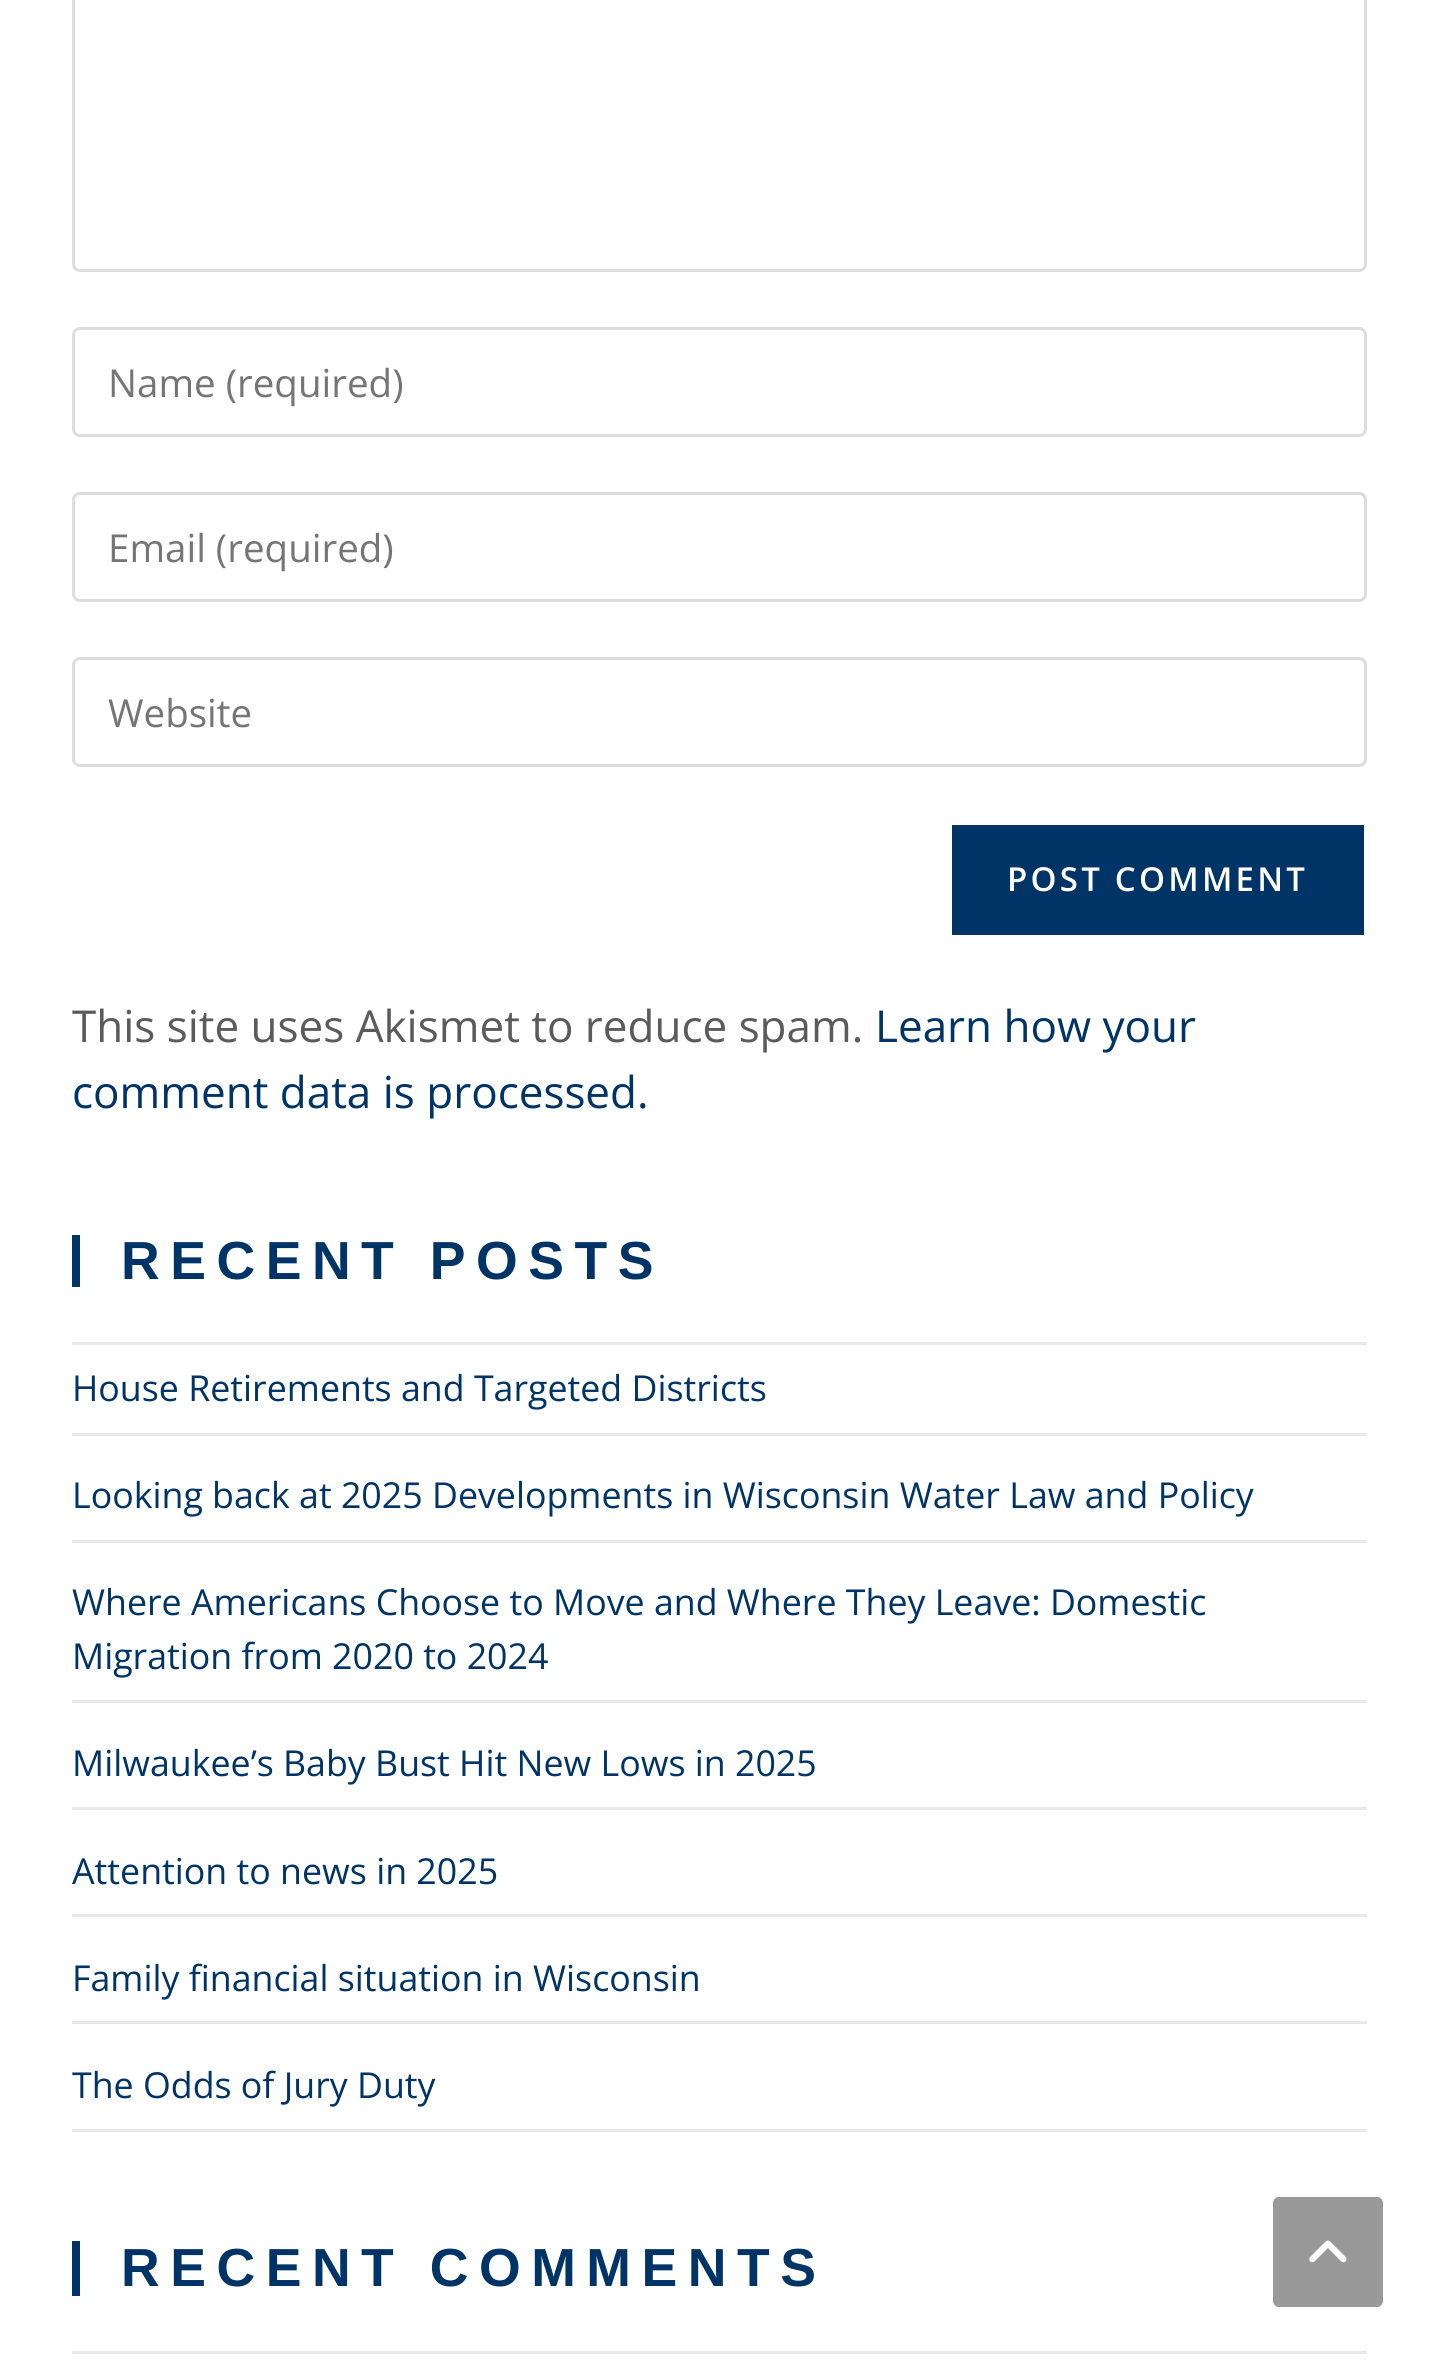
#include <cairo.h>
#include <math.h>
#include <stddef.h>


static void set_color(cairo_t *cr, unsigned color) {
    cairo_set_source_rgb(cr, (color >> 16) / 255.0, (color >> 8 & 255) / 255.0, (color & 255) / 255.0);
}

static void draw_text(cairo_t *cr, double x, double y, const char *s, const char *family, double size, int italic, int bold, unsigned color) {
    cairo_select_font_face(cr, family, italic ? CAIRO_FONT_SLANT_ITALIC : CAIRO_FONT_SLANT_NORMAL,
        bold ? CAIRO_FONT_WEIGHT_BOLD : CAIRO_FONT_WEIGHT_NORMAL);
    cairo_set_font_size(cr, size);
    set_color(cr, color);
    cairo_move_to(cr, x, y);
    cairo_show_text(cr, s);
}

static void draw_spaced(cairo_t *cr, double x, double y, const char *s, double letter, double word) {
    cairo_move_to(cr, x, y);
    while (*s) {
        char ch[5] = {0};
        int n = 0;
        do ch[n++] = *s++; while ((*s & 0xC0) == 0x80);
        cairo_show_text(cr, ch);
        cairo_rel_move_to(cr, letter + word * (*ch == ' '), 0);
    }
}

static void fill_rect(cairo_t *cr, double x, double y, double w, double h, unsigned color) {
    set_color(cr, color);
    cairo_rectangle(cr, x, y, w, h);
    cairo_fill(cr);
}

static void rounded_rect(cairo_t *cr, double x, double y, double w, double h, double r) {
    cairo_new_sub_path(cr);
    cairo_arc(cr, x + w - r, y + h - r, r, 0, M_PI / 2);
    cairo_arc(cr, x + r, y + h - r, r, M_PI / 2, M_PI);
    cairo_arc(cr, x + r, y + r, r, M_PI, 1.5 * M_PI);
    cairo_arc(cr, x + w - r, y + r, r, 1.5 * M_PI, 2 * M_PI);
    cairo_close_path(cr);
}

static void draw_image(cairo_t *cr, const char *path, double x, double y, double w, double h) {
    cairo_surface_t *image = cairo_image_surface_create_from_png(path);
    cairo_save(cr);
    cairo_set_source_surface(cr, image, x, y);
    cairo_rectangle(cr, x, y, w, h);
    cairo_fill(cr);
    cairo_restore(cr);
    cairo_surface_destroy(image);
}

int main(void) {
    cairo_surface_t *surface = cairo_image_surface_create(CAIRO_FORMAT_RGB24, 1436, 2362);
    cairo_t *cr = cairo_create(surface);
    cairo_font_options_t *options = cairo_font_options_create();
    cairo_font_options_set_hint_metrics(options, CAIRO_HINT_METRICS_OFF);
    cairo_font_options_set_hint_style(options, CAIRO_HINT_STYLE_NONE);
    cairo_set_font_options(cr, options);
    cairo_set_miter_limit(cr, 4);
    set_color(cr, 0xFFFFFF);
    cairo_paint(cr);
    rounded_rect(cr, 73.5, -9.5, 1292, 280, 6.5);
    set_color(cr, 0xDDDDDD);
    cairo_set_line_width(cr, 3);
    cairo_stroke(cr);
    rounded_rect(cr, 73.5, 328.5, 1292, 107, 6.5);
    cairo_stroke(cr);
    draw_text(cr, 108, 397, "Name (required)", "Open Sans", 38.5, 0, 0, 0x757575);
    rounded_rect(cr, 73.5, 493.5, 1292, 107, 6.5);
    set_color(cr, 0xDDDDDD);
    cairo_stroke(cr);
    draw_text(cr, 108, 562, "Email (required)", "Open Sans", 38.5, 0, 0, 0x757575);
    rounded_rect(cr, 73.5, 658.5, 1292, 107, 6.5);
    set_color(cr, 0xDDDDDD);
    cairo_stroke(cr);
    draw_text(cr, 108, 727, "Website", "Open Sans", 38.5, 0, 0, 0x757575);
    fill_rect(cr, 952, 825, 412, 110, 0x003366);
    cairo_select_font_face(cr, "Open Sans SemiBold", CAIRO_FONT_SLANT_NORMAL, CAIRO_FONT_WEIGHT_NORMAL);
    cairo_set_font_size(cr, 33);
    set_color(cr, 0xFFFFFF);
    draw_spaced(cr, 1007, 891, "POST COMMENT", 3.25, 0);
    draw_text(cr, 72, 1042, "This site uses Akismet to reduce spam.", "Open Sans", 44, 0, 0, 0x5B5B5B);
    draw_text(cr, 875, 1042, "Learn how your", "Open Sans", 44, 0, 0, 0x003366);
    draw_text(cr, 72, 1108, "comment data is processed.", "Open Sans", 44, 0, 0, 0x003366);
    fill_rect(cr, 72, 1235, 8, 52, 0x003366);
    cairo_select_font_face(cr, "Liberation Sans", CAIRO_FONT_SLANT_NORMAL, CAIRO_FONT_WEIGHT_BOLD);
    cairo_set_font_size(cr, 53.6);
    draw_spaced(cr, 121, 1279, "RECENT POSTS", 10.5, 0);
    fill_rect(cr, 72, 1342, 1295, 3, 0xE9E9E9);
    fill_rect(cr, 72, 1433, 1295, 3, 0xE9E9E9);
    draw_text(cr, 72, 1401, "House Retirements and Targeted Districts", "Open Sans", 35.75, 0, 0, 0x003366);
    fill_rect(cr, 72, 1540, 1295, 3, 0xE9E9E9);
    draw_text(cr, 72, 1508, "Looking back at 2025 Developments in Wisconsin Water Law and Policy", "Open Sans", 35.75, 0, 0, 0x003366);
    fill_rect(cr, 72, 1700, 1295, 3, 0xE9E9E9);
    draw_text(cr, 72, 1615, "Where Americans Choose to Move and Where They Leave: Domestic", "Open Sans", 35.75, 0, 0, 0x003366);
    draw_text(cr, 72, 1669, "Migration from 2020 to 2024", "Open Sans", 35.75, 0, 0, 0x003366);
    fill_rect(cr, 72, 1807, 1295, 3, 0xE9E9E9);
    draw_text(cr, 72, 1776, "Milwaukee’s Baby Bust Hit New Lows in 2025", "Open Sans", 35.75, 0, 0, 0x003366);
    fill_rect(cr, 72, 1914, 1295, 3, 0xE9E9E9);
    draw_text(cr, 72, 1884, "Attention to news in 2025", "Open Sans", 35.75, 0, 0, 0x003366);
    fill_rect(cr, 72, 2021, 1295, 3, 0xE9E9E9);
    draw_text(cr, 72, 1991, "Family financial situation in Wisconsin", "Open Sans", 35.75, 0, 0, 0x003366);
    fill_rect(cr, 72, 2129, 1295, 3, 0xE9E9E9);
    draw_text(cr, 72, 2098, "The Odds of Jury Duty", "Open Sans", 35.75, 0, 0, 0x003366);
    fill_rect(cr, 72, 2241, 8, 55, 0x003366);
    cairo_select_font_face(cr, "Liberation Sans", CAIRO_FONT_SLANT_NORMAL, CAIRO_FONT_WEIGHT_BOLD);
    cairo_set_font_size(cr, 53.6);
    draw_spaced(cr, 121, 2286, "RECENT COMMENTS", 10.5, 0);
    fill_rect(cr, 72, 2351, 1295, 3, 0xE9E9E9);
    set_color(cr, 0x999999);
    rounded_rect(cr, 1273, 2197, 110, 110, 6);
    cairo_fill(cr);
    draw_image(cr, "assets/img1.png", 1309, 2240, 38, 23);
    cairo_surface_write_to_png(surface, "output.png");
    cairo_font_options_destroy(options);
    cairo_destroy(cr);
    cairo_surface_destroy(surface);
    return 0;
}
